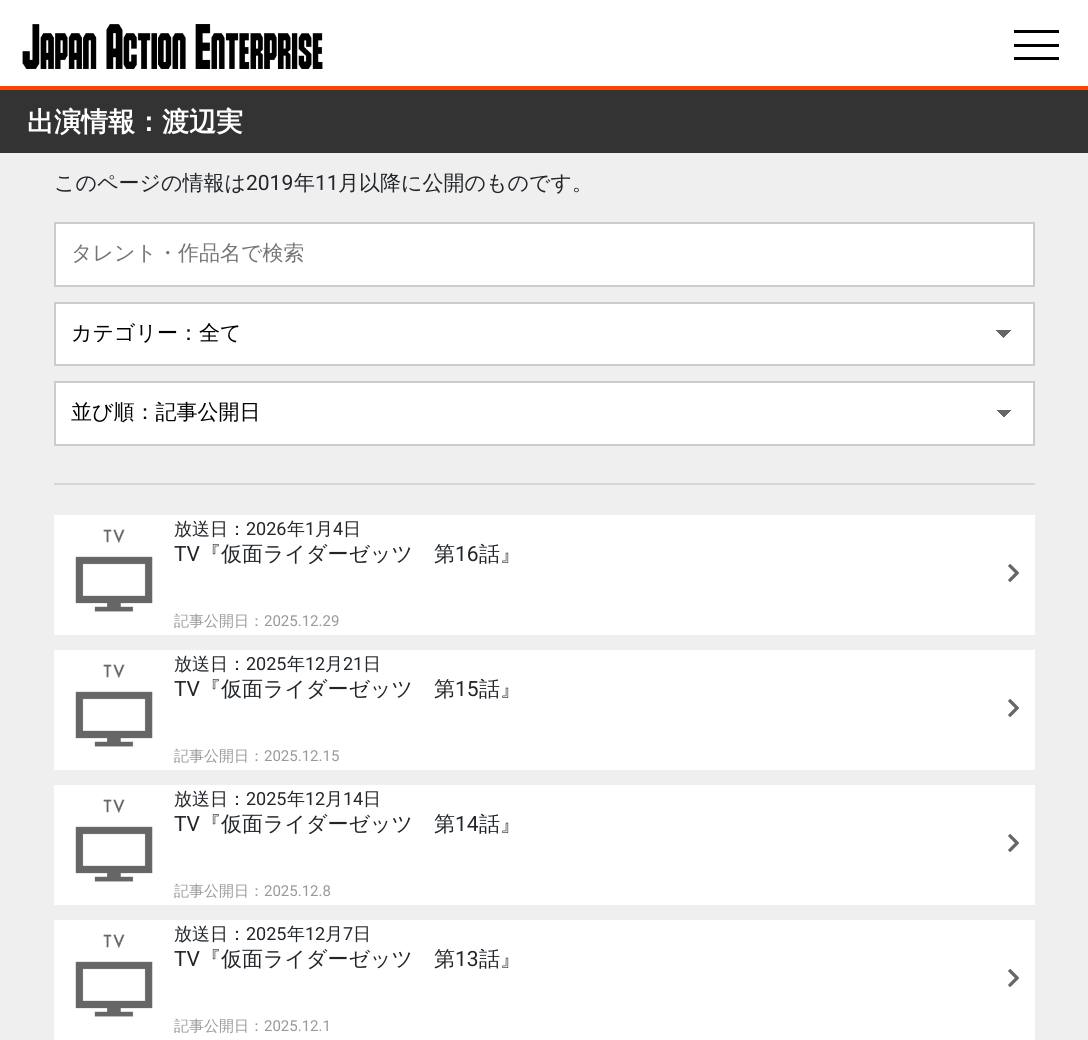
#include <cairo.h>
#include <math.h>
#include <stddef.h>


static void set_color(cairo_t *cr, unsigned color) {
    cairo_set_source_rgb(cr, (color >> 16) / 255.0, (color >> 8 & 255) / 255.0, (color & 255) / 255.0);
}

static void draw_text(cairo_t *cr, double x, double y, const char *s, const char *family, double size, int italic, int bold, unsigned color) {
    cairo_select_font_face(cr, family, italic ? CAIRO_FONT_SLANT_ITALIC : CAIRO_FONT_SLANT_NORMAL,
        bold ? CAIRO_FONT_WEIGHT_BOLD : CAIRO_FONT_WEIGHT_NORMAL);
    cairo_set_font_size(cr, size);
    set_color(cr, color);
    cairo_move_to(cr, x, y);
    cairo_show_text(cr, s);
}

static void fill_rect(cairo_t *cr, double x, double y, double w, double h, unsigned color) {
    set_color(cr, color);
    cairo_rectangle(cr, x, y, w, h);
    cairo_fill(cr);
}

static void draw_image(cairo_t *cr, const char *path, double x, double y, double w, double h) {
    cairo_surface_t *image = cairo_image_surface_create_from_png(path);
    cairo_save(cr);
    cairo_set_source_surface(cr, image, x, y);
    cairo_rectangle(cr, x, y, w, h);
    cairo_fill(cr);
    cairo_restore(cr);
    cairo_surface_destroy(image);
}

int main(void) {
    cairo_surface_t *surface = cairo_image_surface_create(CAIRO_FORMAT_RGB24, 1088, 1040);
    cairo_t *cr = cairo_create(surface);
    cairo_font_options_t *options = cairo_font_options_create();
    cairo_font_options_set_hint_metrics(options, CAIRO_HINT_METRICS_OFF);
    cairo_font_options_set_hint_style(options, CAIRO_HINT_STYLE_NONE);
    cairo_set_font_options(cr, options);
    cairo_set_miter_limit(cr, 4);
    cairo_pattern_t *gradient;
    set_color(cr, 0xFFFFFF);
    cairo_paint(cr);
    fill_rect(cr, 0, 86, 1088, 4, 0xFF4500);
    draw_image(cr, "assets/img1.png", 22, 24, 301, 45);
    fill_rect(cr, 1014, 30, 45, 3, 0x000000);
    fill_rect(cr, 1014, 44, 45, 3, 0x000000);
    fill_rect(cr, 1014, 57, 45, 3, 0x000000);
    fill_rect(cr, 0, 153, 1088, 887, 0xEFEFEF);
    fill_rect(cr, 0, 90, 1088, 63, 0x333333);
    draw_text(cr, 27, 131, "出演情報：渡辺実", "WenQuanYi Zen Hei", 27, 0, 1, 0xFFFFFF);
    draw_text(cr, 54, 190, "このページの情報は", "WenQuanYi Zen Hei Medium", 21, 0, 0, 0x212529);
    draw_text(cr, 246, 190, "2019", "Roboto", 21, 0, 0, 0x212529);
    draw_text(cr, 294, 190, "年", "WenQuanYi Zen Hei Medium", 21, 0, 0, 0x212529);
    draw_text(cr, 315, 190, "11", "Roboto", 21, 0, 0, 0x212529);
    draw_text(cr, 338, 190, "月以降に公開のものです。", "WenQuanYi Zen Hei Medium", 21, 0, 0, 0x212529);
    set_color(cr, 0xFFFFFF);
    cairo_rectangle(cr, 55, 223, 979, 63);
    cairo_fill_preserve(cr);
    set_color(cr, 0xCCCCCC);
    cairo_stroke(cr);
    draw_text(cr, 71, 260, "タレント・作品名で検索", "WenQuanYi Zen Hei Medium", 21, 0, 0, 0x757575);
    fill_rect(cr, 56, 304, 977, 60, 0xFFFFFF);
    gradient = cairo_pattern_create_linear(1004, 330, 1011, 338);
    cairo_pattern_add_color_stop_rgba(gradient, 0.5, 0.4, 0.4, 0.4, 1);
    cairo_pattern_add_color_stop_rgba(gradient, 0.5, 1, 1, 1, 1);
    cairo_set_source(cr, gradient);
    cairo_pattern_destroy(gradient);
    cairo_rectangle(cr, 1004, 330, 7, 8);
    cairo_fill(cr);
    gradient = cairo_pattern_create_linear(996, 338, 1004, 330);
    cairo_pattern_add_color_stop_rgba(gradient, 0.5, 1, 1, 1, 1);
    cairo_pattern_add_color_stop_rgba(gradient, 0.5, 0.4, 0.4, 0.4, 1);
    cairo_set_source(cr, gradient);
    cairo_pattern_destroy(gradient);
    cairo_rectangle(cr, 996, 330, 8, 8);
    cairo_fill(cr);
    cairo_rectangle(cr, 55, 303, 979, 62);
    set_color(cr, 0xCCCCCC);
    cairo_stroke(cr);
    draw_text(cr, 71, 340, "カテゴリー：全て", "WenQuanYi Zen Hei Medium", 21, 0, 0, 0x000000);
    fill_rect(cr, 56, 383, 977, 61, 0xFFFFFF);
    gradient = cairo_pattern_create_linear(1004, 410, 1011, 417);
    cairo_pattern_add_color_stop_rgba(gradient, 0.5, 0.4, 0.4, 0.4, 1);
    cairo_pattern_add_color_stop_rgba(gradient, 0.5, 1, 1, 1, 1);
    cairo_set_source(cr, gradient);
    cairo_pattern_destroy(gradient);
    cairo_rectangle(cr, 1004, 410, 7, 7);
    cairo_fill(cr);
    gradient = cairo_pattern_create_linear(996, 417, 1004, 410);
    cairo_pattern_add_color_stop_rgba(gradient, 0.5, 1, 1, 1, 1);
    cairo_pattern_add_color_stop_rgba(gradient, 0.5, 0.4, 0.4, 0.4, 1);
    cairo_set_source(cr, gradient);
    cairo_pattern_destroy(gradient);
    cairo_rectangle(cr, 996, 410, 8, 7);
    cairo_fill(cr);
    cairo_rectangle(cr, 55, 382, 979, 63);
    set_color(cr, 0xCCCCCC);
    cairo_stroke(cr);
    draw_text(cr, 71, 419, "並び順：記事公開日", "WenQuanYi Zen Hei Medium", 21, 0, 0, 0x000000);
    fill_rect(cr, 54, 483, 981, 2, 0xD7D7D7);
    fill_rect(cr, 54, 515, 981, 120, 0xFFFFFF);
    draw_image(cr, "assets/img2.png", 75, 529, 78, 83);
    draw_text(cr, 174, 535, "放送日：", "WenQuanYi Zen Hei Medium", 18, 0, 0, 0x212529);
    draw_text(cr, 246, 535, "2026", "Roboto", 18, 0, 0, 0x212529);
    draw_text(cr, 287, 535, "年", "WenQuanYi Zen Hei Medium", 18, 0, 0, 0x212529);
    draw_text(cr, 305, 535, "1", "Roboto", 18, 0, 0, 0x212529);
    draw_text(cr, 315, 535, "月", "WenQuanYi Zen Hei Medium", 18, 0, 0, 0x212529);
    draw_text(cr, 333, 535, "4", "Roboto", 18, 0, 0, 0x212529);
    draw_text(cr, 343, 535, "日", "WenQuanYi Zen Hei Medium", 18, 0, 0, 0x212529);
    draw_text(cr, 174, 561, "TV", "Roboto", 21, 0, 0, 0x212529);
    draw_text(cr, 200, 561, "『仮面ライダーゼッツ　第", "WenQuanYi Zen Hei Medium", 21, 0, 0, 0x212529);
    draw_text(cr, 455, 561, "16", "Roboto", 21, 0, 0, 0x212529);
    draw_text(cr, 479, 561, "話』", "WenQuanYi Zen Hei Medium", 21, 0, 0, 0x212529);
    draw_image(cr, "assets/img3.png", 1008, 564, 11, 18);
    draw_text(cr, 174, 626, "記事公開日：", "WenQuanYi Zen Hei Medium", 15, 0, 0, 0x999999);
    draw_text(cr, 264, 626, "2025.12.29", "Roboto", 15, 0, 0, 0x999999);
    fill_rect(cr, 54, 650, 981, 120, 0xFFFFFF);
    draw_image(cr, "assets/img2.png", 75, 664, 78, 83);
    draw_text(cr, 174, 670, "放送日：", "WenQuanYi Zen Hei Medium", 18, 0, 0, 0x212529);
    draw_text(cr, 246, 670, "2025", "Roboto", 18, 0, 0, 0x212529);
    draw_text(cr, 287, 670, "年", "WenQuanYi Zen Hei Medium", 18, 0, 0, 0x212529);
    draw_text(cr, 305, 670, "12", "Roboto", 18, 0, 0, 0x212529);
    draw_text(cr, 325, 670, "月", "WenQuanYi Zen Hei Medium", 18, 0, 0, 0x212529);
    draw_text(cr, 343, 670, "21", "Roboto", 18, 0, 0, 0x212529);
    draw_text(cr, 363, 670, "日", "WenQuanYi Zen Hei Medium", 18, 0, 0, 0x212529);
    draw_text(cr, 174, 696, "TV", "Roboto", 21, 0, 0, 0x212529);
    draw_text(cr, 200, 696, "『仮面ライダーゼッツ　第", "WenQuanYi Zen Hei Medium", 21, 0, 0, 0x212529);
    draw_text(cr, 455, 696, "15", "Roboto", 21, 0, 0, 0x212529);
    draw_text(cr, 479, 696, "話』", "WenQuanYi Zen Hei Medium", 21, 0, 0, 0x212529);
    draw_image(cr, "assets/img3.png", 1008, 699, 11, 18);
    draw_text(cr, 174, 761, "記事公開日：", "WenQuanYi Zen Hei Medium", 15, 0, 0, 0x999999);
    draw_text(cr, 264, 761, "2025.12.15", "Roboto", 15, 0, 0, 0x999999);
    fill_rect(cr, 54, 785, 981, 120, 0xFFFFFF);
    draw_image(cr, "assets/img2.png", 75, 799, 78, 83);
    draw_text(cr, 174, 805, "放送日：", "WenQuanYi Zen Hei Medium", 18, 0, 0, 0x212529);
    draw_text(cr, 246, 805, "2025", "Roboto", 18, 0, 0, 0x212529);
    draw_text(cr, 287, 805, "年", "WenQuanYi Zen Hei Medium", 18, 0, 0, 0x212529);
    draw_text(cr, 305, 805, "12", "Roboto", 18, 0, 0, 0x212529);
    draw_text(cr, 325, 805, "月", "WenQuanYi Zen Hei Medium", 18, 0, 0, 0x212529);
    draw_text(cr, 343, 805, "14", "Roboto", 18, 0, 0, 0x212529);
    draw_text(cr, 363, 805, "日", "WenQuanYi Zen Hei Medium", 18, 0, 0, 0x212529);
    draw_text(cr, 174, 831, "TV", "Roboto", 21, 0, 0, 0x212529);
    draw_text(cr, 200, 831, "『仮面ライダーゼッツ　第", "WenQuanYi Zen Hei Medium", 21, 0, 0, 0x212529);
    draw_text(cr, 455, 831, "14", "Roboto", 21, 0, 0, 0x212529);
    draw_text(cr, 479, 831, "話』", "WenQuanYi Zen Hei Medium", 21, 0, 0, 0x212529);
    draw_image(cr, "assets/img3.png", 1008, 834, 11, 18);
    draw_text(cr, 174, 896, "記事公開日：", "WenQuanYi Zen Hei Medium", 15, 0, 0, 0x999999);
    draw_text(cr, 264, 896, "2025.12.8", "Roboto", 15, 0, 0, 0x999999);
    fill_rect(cr, 54, 920, 981, 120, 0xFFFFFF);
    draw_image(cr, "assets/img2.png", 75, 934, 78, 83);
    draw_text(cr, 174, 940, "放送日：", "WenQuanYi Zen Hei Medium", 18, 0, 0, 0x212529);
    draw_text(cr, 246, 940, "2025", "Roboto", 18, 0, 0, 0x212529);
    draw_text(cr, 287, 940, "年", "WenQuanYi Zen Hei Medium", 18, 0, 0, 0x212529);
    draw_text(cr, 305, 940, "12", "Roboto", 18, 0, 0, 0x212529);
    draw_text(cr, 325, 940, "月", "WenQuanYi Zen Hei Medium", 18, 0, 0, 0x212529);
    draw_text(cr, 343, 940, "7", "Roboto", 18, 0, 0, 0x212529);
    draw_text(cr, 353, 940, "日", "WenQuanYi Zen Hei Medium", 18, 0, 0, 0x212529);
    draw_text(cr, 174, 966, "TV", "Roboto", 21, 0, 0, 0x212529);
    draw_text(cr, 200, 966, "『仮面ライダーゼッツ　第", "WenQuanYi Zen Hei Medium", 21, 0, 0, 0x212529);
    draw_text(cr, 455, 966, "13", "Roboto", 21, 0, 0, 0x212529);
    draw_text(cr, 479, 966, "話』", "WenQuanYi Zen Hei Medium", 21, 0, 0, 0x212529);
    draw_image(cr, "assets/img3.png", 1008, 969, 11, 18);
    draw_text(cr, 174, 1031, "記事公開日：", "WenQuanYi Zen Hei Medium", 15, 0, 0, 0x999999);
    draw_text(cr, 264, 1031, "2025.12.1", "Roboto", 15, 0, 0, 0x999999);
    cairo_surface_write_to_png(surface, "output.png");
    cairo_font_options_destroy(options);
    cairo_destroy(cr);
    cairo_surface_destroy(surface);
    return 0;
}
